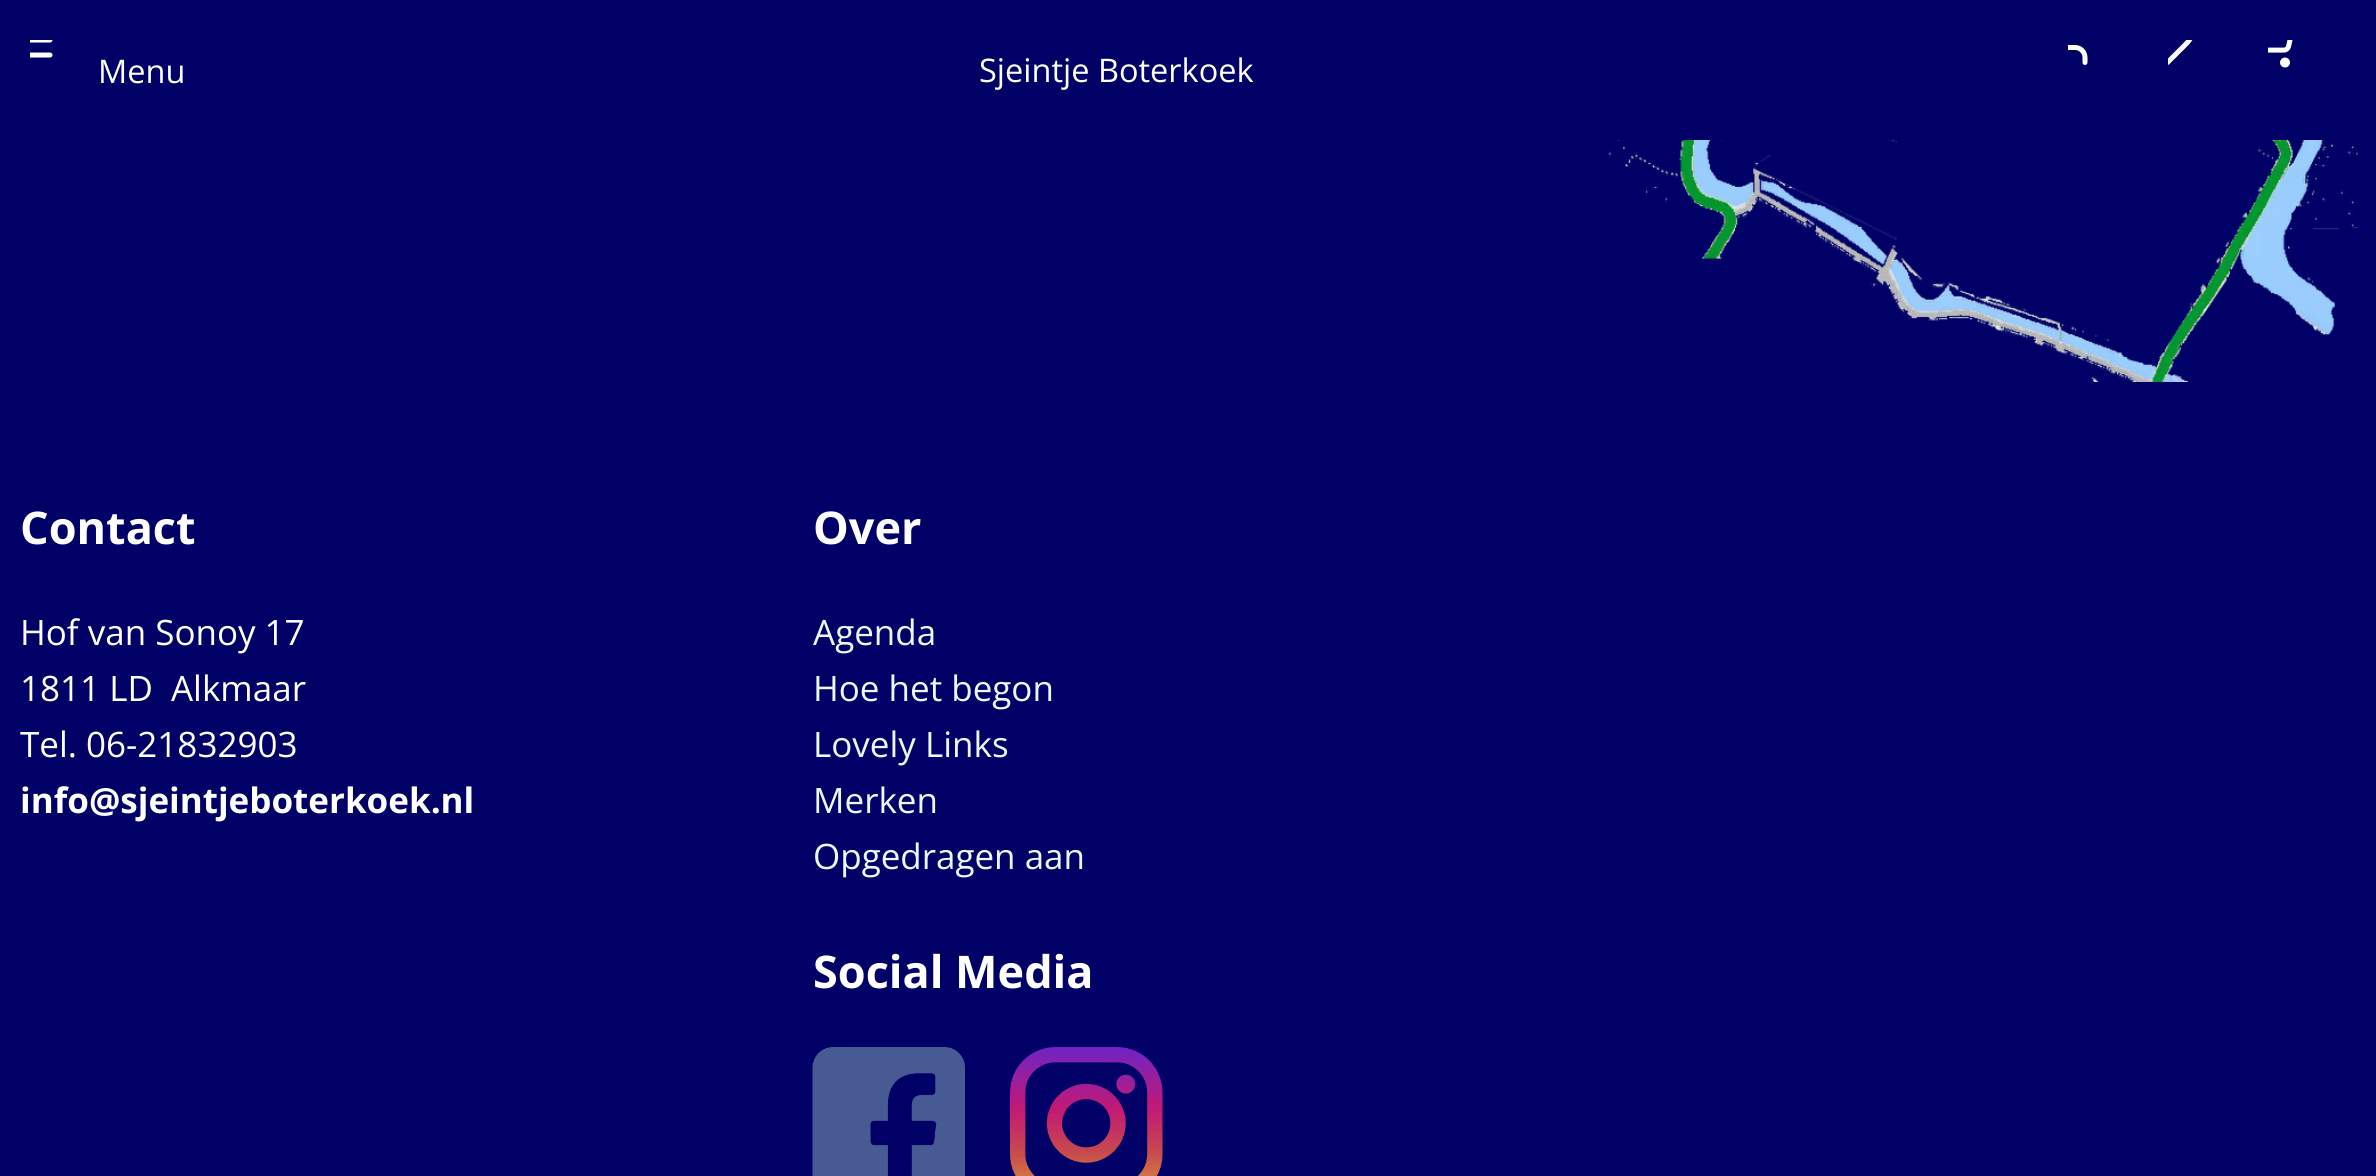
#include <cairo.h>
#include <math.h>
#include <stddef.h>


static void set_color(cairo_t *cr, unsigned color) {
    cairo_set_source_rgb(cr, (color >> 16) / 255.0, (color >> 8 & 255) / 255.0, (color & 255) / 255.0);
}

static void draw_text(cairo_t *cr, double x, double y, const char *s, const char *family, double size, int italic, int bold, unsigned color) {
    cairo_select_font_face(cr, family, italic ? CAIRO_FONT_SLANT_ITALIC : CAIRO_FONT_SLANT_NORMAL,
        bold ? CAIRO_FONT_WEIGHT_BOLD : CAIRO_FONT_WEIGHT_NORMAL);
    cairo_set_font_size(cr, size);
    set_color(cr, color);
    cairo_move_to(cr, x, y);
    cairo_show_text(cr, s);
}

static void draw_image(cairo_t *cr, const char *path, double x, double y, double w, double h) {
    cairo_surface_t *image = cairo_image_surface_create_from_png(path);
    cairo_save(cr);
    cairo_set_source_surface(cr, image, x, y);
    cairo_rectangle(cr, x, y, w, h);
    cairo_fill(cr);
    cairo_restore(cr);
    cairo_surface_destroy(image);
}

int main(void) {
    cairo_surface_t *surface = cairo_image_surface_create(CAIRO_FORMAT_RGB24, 2376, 1176);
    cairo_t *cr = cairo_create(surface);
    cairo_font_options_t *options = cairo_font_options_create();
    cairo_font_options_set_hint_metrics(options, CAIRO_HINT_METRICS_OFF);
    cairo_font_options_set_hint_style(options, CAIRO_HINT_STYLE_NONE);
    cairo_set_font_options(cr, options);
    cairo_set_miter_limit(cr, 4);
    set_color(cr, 0x000066);
    cairo_paint(cr);
    draw_image(cr, "assets/img1.png", 2068, 45, 20, 20);
    draw_image(cr, "assets/img2.png", 2168, 40, 25, 25);
    draw_image(cr, "assets/img3.png", 2268, 40, 25, 28);
    draw_image(cr, "assets/img4.png", 30, 40, 23, 18);
    draw_text(cr, 98, 83, "Menu", "Open Sans", 32.5, 0, 0, 0xFFFFFF);
    draw_text(cr, 979, 82, "Sjeintje Boterkoek", "Open Sans", 32.5, 0, 0, 0xFFFFFF);
    draw_image(cr, "assets/img5.png", 1606, 140, 752, 242);
    draw_text(cr, 20, 544, "Contact", "Open Sans", 45, 0, 1, 0xFFFFFF);
    draw_text(cr, 20, 645, "Hof van Sonoy 17", "Open Sans", 35, 0, 0, 0xFFFFFF);
    draw_text(cr, 20, 701, "1811 LD  Alkmaar", "Open Sans", 35, 0, 0, 0xFFFFFF);
    draw_text(cr, 20, 757, "Tel. 06-21832903", "Open Sans", 35, 0, 0, 0xFFFFFF);
    draw_text(cr, 20, 813, "info@sjeintjeboterkoek.nl", "Open Sans", 35, 0, 1, 0xFFFFFF);
    draw_text(cr, 813, 544, "Over", "Open Sans", 45, 0, 1, 0xFFFFFF);
    draw_text(cr, 813, 645, "Agenda", "Open Sans", 35, 0, 0, 0xEBF8FE);
    draw_text(cr, 813, 701, "Hoe het begon", "Open Sans", 35, 0, 0, 0xEBF8FE);
    draw_text(cr, 813, 757, "Lovely Links", "Open Sans", 35, 0, 0, 0xEBF8FE);
    draw_text(cr, 813, 813, "Merken", "Open Sans", 35, 0, 0, 0xEBF8FE);
    draw_text(cr, 813, 869, "Opgedragen aan", "Open Sans", 35, 0, 0, 0xEBF8FE);
    draw_text(cr, 813, 988, "Social Media", "Open Sans", 45, 0, 1, 0xFFFFFF);
    draw_image(cr, "assets/img6.png", 812, 1047, 153, 129);
    draw_image(cr, "assets/img7.png", 1010, 1047, 153, 129);
    cairo_surface_write_to_png(surface, "output.png");
    cairo_font_options_destroy(options);
    cairo_destroy(cr);
    cairo_surface_destroy(surface);
    return 0;
}
